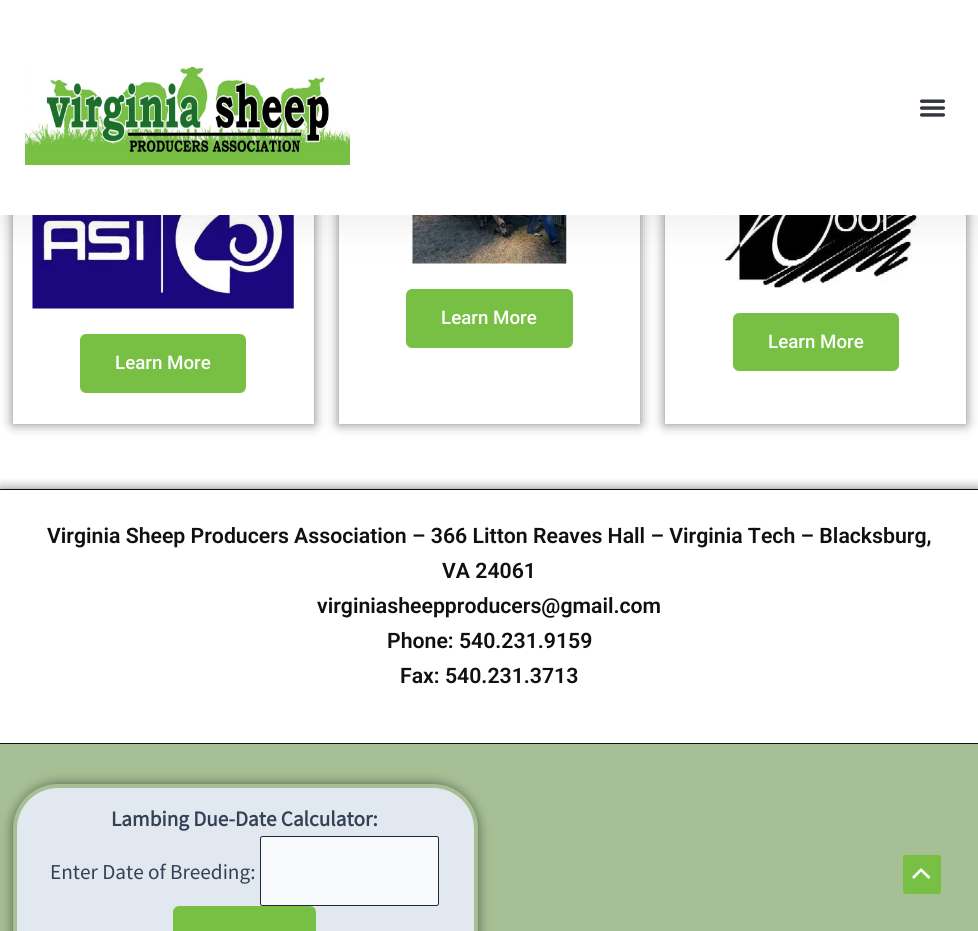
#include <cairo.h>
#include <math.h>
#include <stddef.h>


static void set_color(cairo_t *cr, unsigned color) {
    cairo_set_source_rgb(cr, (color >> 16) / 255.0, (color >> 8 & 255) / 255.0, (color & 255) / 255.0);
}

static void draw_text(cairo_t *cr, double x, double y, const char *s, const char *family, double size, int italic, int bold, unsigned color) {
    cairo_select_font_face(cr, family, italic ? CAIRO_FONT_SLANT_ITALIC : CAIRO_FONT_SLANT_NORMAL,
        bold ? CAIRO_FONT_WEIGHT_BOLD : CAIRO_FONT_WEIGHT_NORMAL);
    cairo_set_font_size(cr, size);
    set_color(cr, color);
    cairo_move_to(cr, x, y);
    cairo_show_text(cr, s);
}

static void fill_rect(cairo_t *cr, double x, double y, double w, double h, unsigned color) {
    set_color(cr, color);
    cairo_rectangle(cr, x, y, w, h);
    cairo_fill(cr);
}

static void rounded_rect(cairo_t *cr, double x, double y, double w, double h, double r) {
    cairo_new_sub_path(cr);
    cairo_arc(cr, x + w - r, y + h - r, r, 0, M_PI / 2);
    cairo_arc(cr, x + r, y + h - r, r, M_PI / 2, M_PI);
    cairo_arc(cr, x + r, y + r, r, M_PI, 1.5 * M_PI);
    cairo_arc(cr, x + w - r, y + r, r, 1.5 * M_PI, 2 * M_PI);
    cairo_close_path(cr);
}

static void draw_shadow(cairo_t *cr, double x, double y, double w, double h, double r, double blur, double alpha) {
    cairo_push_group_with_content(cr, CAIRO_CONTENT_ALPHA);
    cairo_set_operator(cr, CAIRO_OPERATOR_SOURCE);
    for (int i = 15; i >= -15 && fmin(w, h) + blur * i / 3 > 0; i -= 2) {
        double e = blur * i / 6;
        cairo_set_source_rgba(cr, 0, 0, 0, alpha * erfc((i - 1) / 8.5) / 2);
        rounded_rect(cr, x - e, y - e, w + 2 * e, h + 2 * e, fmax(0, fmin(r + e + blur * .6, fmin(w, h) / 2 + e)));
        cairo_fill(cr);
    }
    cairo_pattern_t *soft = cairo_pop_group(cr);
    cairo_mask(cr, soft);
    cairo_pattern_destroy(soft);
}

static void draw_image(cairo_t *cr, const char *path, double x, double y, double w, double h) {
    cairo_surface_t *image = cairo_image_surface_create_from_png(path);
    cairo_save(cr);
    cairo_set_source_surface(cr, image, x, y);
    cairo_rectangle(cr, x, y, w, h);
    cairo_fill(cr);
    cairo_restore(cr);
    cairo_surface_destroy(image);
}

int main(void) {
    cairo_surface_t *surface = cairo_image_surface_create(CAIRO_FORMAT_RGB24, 978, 931);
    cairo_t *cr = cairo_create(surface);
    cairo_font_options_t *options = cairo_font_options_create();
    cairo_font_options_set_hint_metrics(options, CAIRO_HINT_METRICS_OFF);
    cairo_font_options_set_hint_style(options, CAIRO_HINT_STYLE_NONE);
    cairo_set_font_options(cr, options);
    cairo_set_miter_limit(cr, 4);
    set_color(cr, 0xFFFFFF);
    cairo_paint(cr);
    set_color(cr, 0x000000);
    draw_shadow(cr, 339, 38, 301, 386, 0, 6, 0.5);
    fill_rect(cr, 339, 215, 301, 209, 0xFFFFFF);
    draw_image(cr, "assets/img3.png", 412, 215, 155, 49);
    set_color(cr, 0x000000);
    draw_shadow(cr, 665, 38, 301, 386, 0, 6, 0.5);
    fill_rect(cr, 665, 215, 301, 209, 0xFFFFFF);
    draw_image(cr, "assets/img4.png", 715, 215, 202, 73);
    set_color(cr, 0x000000);
    draw_shadow(cr, 13, 38, 301, 386, 0, 6, 0.5);
    fill_rect(cr, 13, 215, 301, 209, 0xFFFFFF);
    draw_image(cr, "assets/img5.png", 32, 215, 262, 94);
    set_color(cr, 0x000000);
    draw_shadow(cr, 0, 0, 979, 215, 0, 24, 0.1);
    fill_rect(cr, 0, 0, 978, 215, 0xFFFFFF);
    draw_image(cr, "assets/img1.png", 25, 65, 325, 100);
    draw_image(cr, "assets/img2.png", 919, 99, 27, 18);
    set_color(cr, 0x77C043);
    rounded_rect(cr, 408.5, 291.5, 162, 54, 3.5);
    cairo_fill_preserve(cr);
    cairo_set_line_width(cr, 5);
    cairo_stroke(cr);
    draw_text(cr, 441, 324, "Learn More", "Roboto Medium", 18.75, 0, 0, 0xFFFFFF);
    set_color(cr, 0x77C043);
    rounded_rect(cr, 735.5, 315.5, 161, 53, 3.5);
    cairo_fill_preserve(cr);
    cairo_stroke(cr);
    draw_text(cr, 768, 348, "Learn More", "Roboto Medium", 18.75, 0, 0, 0xFFFFFF);
    set_color(cr, 0x77C043);
    rounded_rect(cr, 82.5, 336.5, 161, 54, 3.5);
    cairo_fill_preserve(cr);
    cairo_stroke(cr);
    draw_text(cr, 115, 369, "Learn More", "Roboto Medium", 18.75, 0, 0, 0xFFFFFF);
    cairo_save(cr);
    cairo_rectangle(cr, 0, 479, 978, 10);
    cairo_clip(cr);
    set_color(cr, 0x000000);
    draw_shadow(cr, 0, 489, 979, 255, 0, 6, 0.5);
    cairo_restore(cr);
    fill_rect(cr, 0, 489, 978, 1, 0x101010);
    fill_rect(cr, 0, 743, 978, 1, 0x101010);
    draw_text(cr, 47, 543, "Virginia Sheep Producers Association – 366 Litton Reaves Hall – Virginia Tech – Blacksburg,", "Roboto SemiBold", 21.25, 0, 0, 0x101010);
    draw_text(cr, 442, 578, "VA 24061", "Roboto SemiBold", 21.25, 0, 0, 0x101010);
    draw_text(cr, 317, 613, "virginiasheepproducers@gmail.com", "Roboto SemiBold", 21.25, 0, 0, 0x101010);
    draw_text(cr, 387, 648, "Phone: 540.231.9159", "Roboto SemiBold", 21.25, 0, 0, 0x101010);
    draw_text(cr, 400, 683, "Fax: 540.231.3713", "Roboto SemiBold", 21.25, 0, 0, 0x101010);
    fill_rect(cr, 0, 744, 978, 187, 0xA6BF95);
    set_color(cr, 0x000000);
    draw_shadow(cr, 13, 784, 465, 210, 45, 6, 0.5);
    set_color(cr, 0xE2E8F0);
    rounded_rect(cr, 15, 786, 461, 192, 43);
    cairo_fill_preserve(cr);
    set_color(cr, 0xA6BF95);
    cairo_set_line_width(cr, 4);
    cairo_stroke(cr);
    draw_text(cr, 111, 826, "Lambing Due-Date Calculator:", "Source Sans Pro", 21.25, 0, 1, 0x334155);
    draw_text(cr, 50, 879, "Enter Date of Breeding:", "Source Sans Pro", 21.25, 0, 0, 0x334155);
    set_color(cr, 0xF9FAFB);
    rounded_rect(cr, 260.5, 836.5, 178, 69, 2);
    cairo_fill_preserve(cr);
    set_color(cr, 0x1E293B);
    cairo_set_line_width(cr, 1);
    cairo_stroke(cr);
    set_color(cr, 0x77C043);
    rounded_rect(cr, 175.5, 908.5, 138, 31, 3.5);
    cairo_fill_preserve(cr);
    cairo_set_line_width(cr, 5);
    cairo_stroke(cr);
    rounded_rect(cr, 903, 855, 38, 39, 2.5);
    cairo_fill(cr);
    set_color(cr, 0xFFFFFF);
    cairo_new_path(cr);
    cairo_move_to(cr, 930.5, 877);
    cairo_line_to(cr, 921, 868);
    cairo_line_to(cr, 912, 877);
    cairo_line_to(cr, 914, 879);
    cairo_line_to(cr, 921, 871.5);
    cairo_line_to(cr, 928.5, 879);
    cairo_close_path(cr);
    cairo_fill(cr);
    cairo_surface_write_to_png(surface, "output.png");
    cairo_font_options_destroy(options);
    cairo_destroy(cr);
    cairo_surface_destroy(surface);
    return 0;
}
